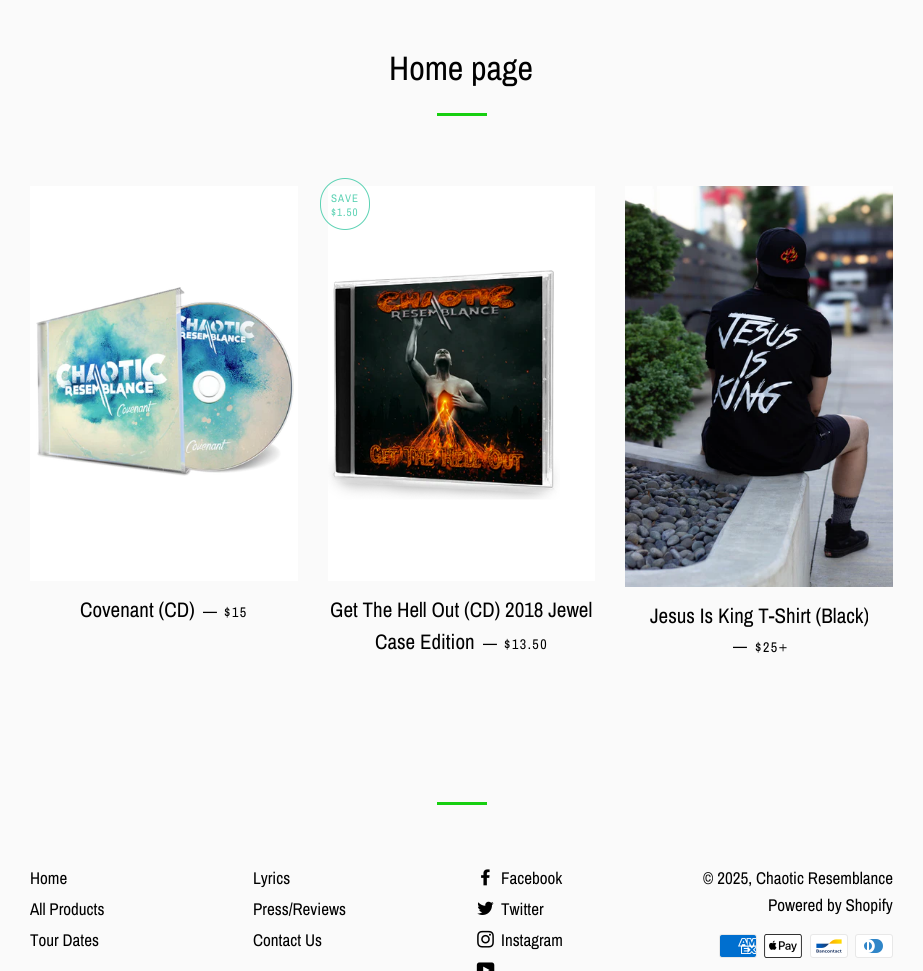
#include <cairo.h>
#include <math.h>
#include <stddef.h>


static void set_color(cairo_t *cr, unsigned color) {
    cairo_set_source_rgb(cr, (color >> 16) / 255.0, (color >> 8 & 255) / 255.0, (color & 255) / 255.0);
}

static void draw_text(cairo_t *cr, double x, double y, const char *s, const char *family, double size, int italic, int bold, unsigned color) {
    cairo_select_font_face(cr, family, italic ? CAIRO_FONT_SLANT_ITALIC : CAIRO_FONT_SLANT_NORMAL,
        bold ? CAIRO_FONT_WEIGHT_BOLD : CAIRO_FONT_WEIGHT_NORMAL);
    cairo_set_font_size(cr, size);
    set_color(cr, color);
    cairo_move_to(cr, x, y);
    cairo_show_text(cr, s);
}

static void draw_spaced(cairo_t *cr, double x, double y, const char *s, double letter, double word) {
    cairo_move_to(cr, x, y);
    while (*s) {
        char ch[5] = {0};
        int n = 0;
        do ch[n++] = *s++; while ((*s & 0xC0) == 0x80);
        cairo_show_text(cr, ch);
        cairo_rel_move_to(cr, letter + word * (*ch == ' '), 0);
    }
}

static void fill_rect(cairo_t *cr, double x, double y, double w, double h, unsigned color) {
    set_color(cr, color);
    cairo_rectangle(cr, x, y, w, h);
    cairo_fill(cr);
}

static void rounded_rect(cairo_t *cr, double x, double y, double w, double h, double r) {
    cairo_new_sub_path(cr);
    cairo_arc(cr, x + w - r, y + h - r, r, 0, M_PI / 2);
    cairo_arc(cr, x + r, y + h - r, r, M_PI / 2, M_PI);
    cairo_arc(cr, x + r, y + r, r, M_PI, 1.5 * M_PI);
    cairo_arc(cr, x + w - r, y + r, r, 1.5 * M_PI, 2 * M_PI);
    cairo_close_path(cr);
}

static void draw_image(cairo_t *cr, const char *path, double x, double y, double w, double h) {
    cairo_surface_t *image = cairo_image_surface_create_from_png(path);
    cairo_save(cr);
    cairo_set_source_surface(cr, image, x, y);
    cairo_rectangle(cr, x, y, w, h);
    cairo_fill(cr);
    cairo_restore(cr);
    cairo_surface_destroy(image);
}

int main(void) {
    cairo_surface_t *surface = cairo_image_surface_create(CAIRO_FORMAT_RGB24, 923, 971);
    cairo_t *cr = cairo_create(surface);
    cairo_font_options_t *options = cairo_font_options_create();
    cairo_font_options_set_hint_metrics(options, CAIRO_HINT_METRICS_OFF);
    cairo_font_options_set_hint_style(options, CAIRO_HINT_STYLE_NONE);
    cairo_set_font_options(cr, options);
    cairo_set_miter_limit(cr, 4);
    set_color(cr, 0xFAFAFA);
    cairo_paint(cr);
    draw_text(cr, 389, 80, "Home page", "Archivo Narrow", 34, 0, 0, 0x000000);
    fill_rect(cr, 437, 113, 50, 3, 0x17CF10);
    fill_rect(cr, 30, 186, 268, 395, 0xFFFFFF);
    draw_image(cr, "assets/img1.png", 36, 287, 258, 189);
    draw_text(cr, 80, 617, "Covenant (CD)", "Archivo Narrow", 21, 0, 0, 0x000000);
    draw_text(cr, 203, 617, "—", "Archivo Narrow", 17, 0, 0, 0x000000);
    cairo_set_font_size(cr, 14);
    draw_spaced(cr, 224, 617, "$15", 1.5, 0);
    fill_rect(cr, 328, 186, 267, 395, 0xFFFFFF);
    draw_image(cr, "assets/img2.png", 328, 270, 232, 230);
    rounded_rect(cr, 320.5, 178.5, 49, 51, 24.5);
    set_color(cr, 0x5DD2B4);
    cairo_set_line_width(cr, 1);
    cairo_stroke(cr);
    cairo_set_font_size(cr, 11);
    draw_spaced(cr, 331, 202, "SAVE", 1, 0);
    draw_spaced(cr, 331, 216, "$1.50", 1, 0);
    draw_text(cr, 330, 617, "Get The Hell Out (CD) 2018 Jewel", "Archivo Narrow", 21, 0, 0, 0x000000);
    draw_text(cr, 375, 649, "Case Edition", "Archivo Narrow", 21, 0, 0, 0x000000);
    draw_text(cr, 483, 649, "—", "Archivo Narrow", 17, 0, 0, 0x000000);
    cairo_set_font_size(cr, 14);
    draw_spaced(cr, 504, 649, "$13.50", 1.5, 0);
    draw_image(cr, "assets/img3.png", 625, 186, 268, 401);
    draw_text(cr, 650, 623, "Jesus Is King T-Shirt (Black)", "Archivo Narrow", 21, 0, 0, 0x000000);
    draw_text(cr, 733, 652, "—", "Archivo Narrow", 17, 0, 0, 0x000000);
    cairo_set_font_size(cr, 14);
    draw_spaced(cr, 755, 652, "$25", 1.5, 0);
    draw_image(cr, "assets/img4.png", 779, 644, 8, 8);
    fill_rect(cr, 437, 802, 50, 3, 0x17CF10);
    draw_text(cr, 30, 884, "Home", "Archivo Narrow", 17, 0, 0, 0x000000);
    draw_text(cr, 30, 915, "All Products", "Archivo Narrow", 17, 0, 0, 0x000000);
    draw_text(cr, 30, 946, "Tour Dates", "Archivo Narrow", 17, 0, 0, 0x000000);
    draw_text(cr, 253, 884, "Lyrics", "Archivo Narrow", 17, 0, 0, 0x000000);
    draw_text(cr, 253, 915, "Press/Reviews", "Archivo Narrow", 17, 0, 0, 0x000000);
    draw_text(cr, 253, 946, "Contact Us", "Archivo Narrow", 17, 0, 0, 0x000000);
    draw_image(cr, "assets/img5.png", 481, 869, 9, 17);
    draw_text(cr, 501, 884, "Facebook", "Archivo Narrow", 17, 0, 0, 0x000000);
    draw_image(cr, "assets/img6.png", 477, 901, 17, 14);
    draw_text(cr, 501, 915, "Twitter", "Archivo Narrow", 17, 0, 0, 0x000000);
    draw_image(cr, "assets/img7.png", 477, 930, 17, 18);
    draw_text(cr, 501, 946, "Instagram", "Archivo Narrow", 17, 0, 0, 0x000000);
    draw_image(cr, "assets/img8.png", 476, 962, 19, 9);
    draw_text(cr, 703, 884, "© 2025, Chaotic Resemblance", "Archivo Narrow", 17, 0, 0, 0x000000);
    draw_text(cr, 768, 911, "Powered by Shopify", "Archivo Narrow", 17, 0, 0, 0x000000);
    draw_image(cr, "assets/img9.png", 719, 934, 38, 24);
    draw_image(cr, "assets/img10.png", 764, 934, 38, 24);
    draw_image(cr, "assets/img11.png", 810, 934, 38, 24);
    draw_image(cr, "assets/img12.png", 855, 934, 38, 24);
    cairo_surface_write_to_png(surface, "output.png");
    cairo_font_options_destroy(options);
    cairo_destroy(cr);
    cairo_surface_destroy(surface);
    return 0;
}
